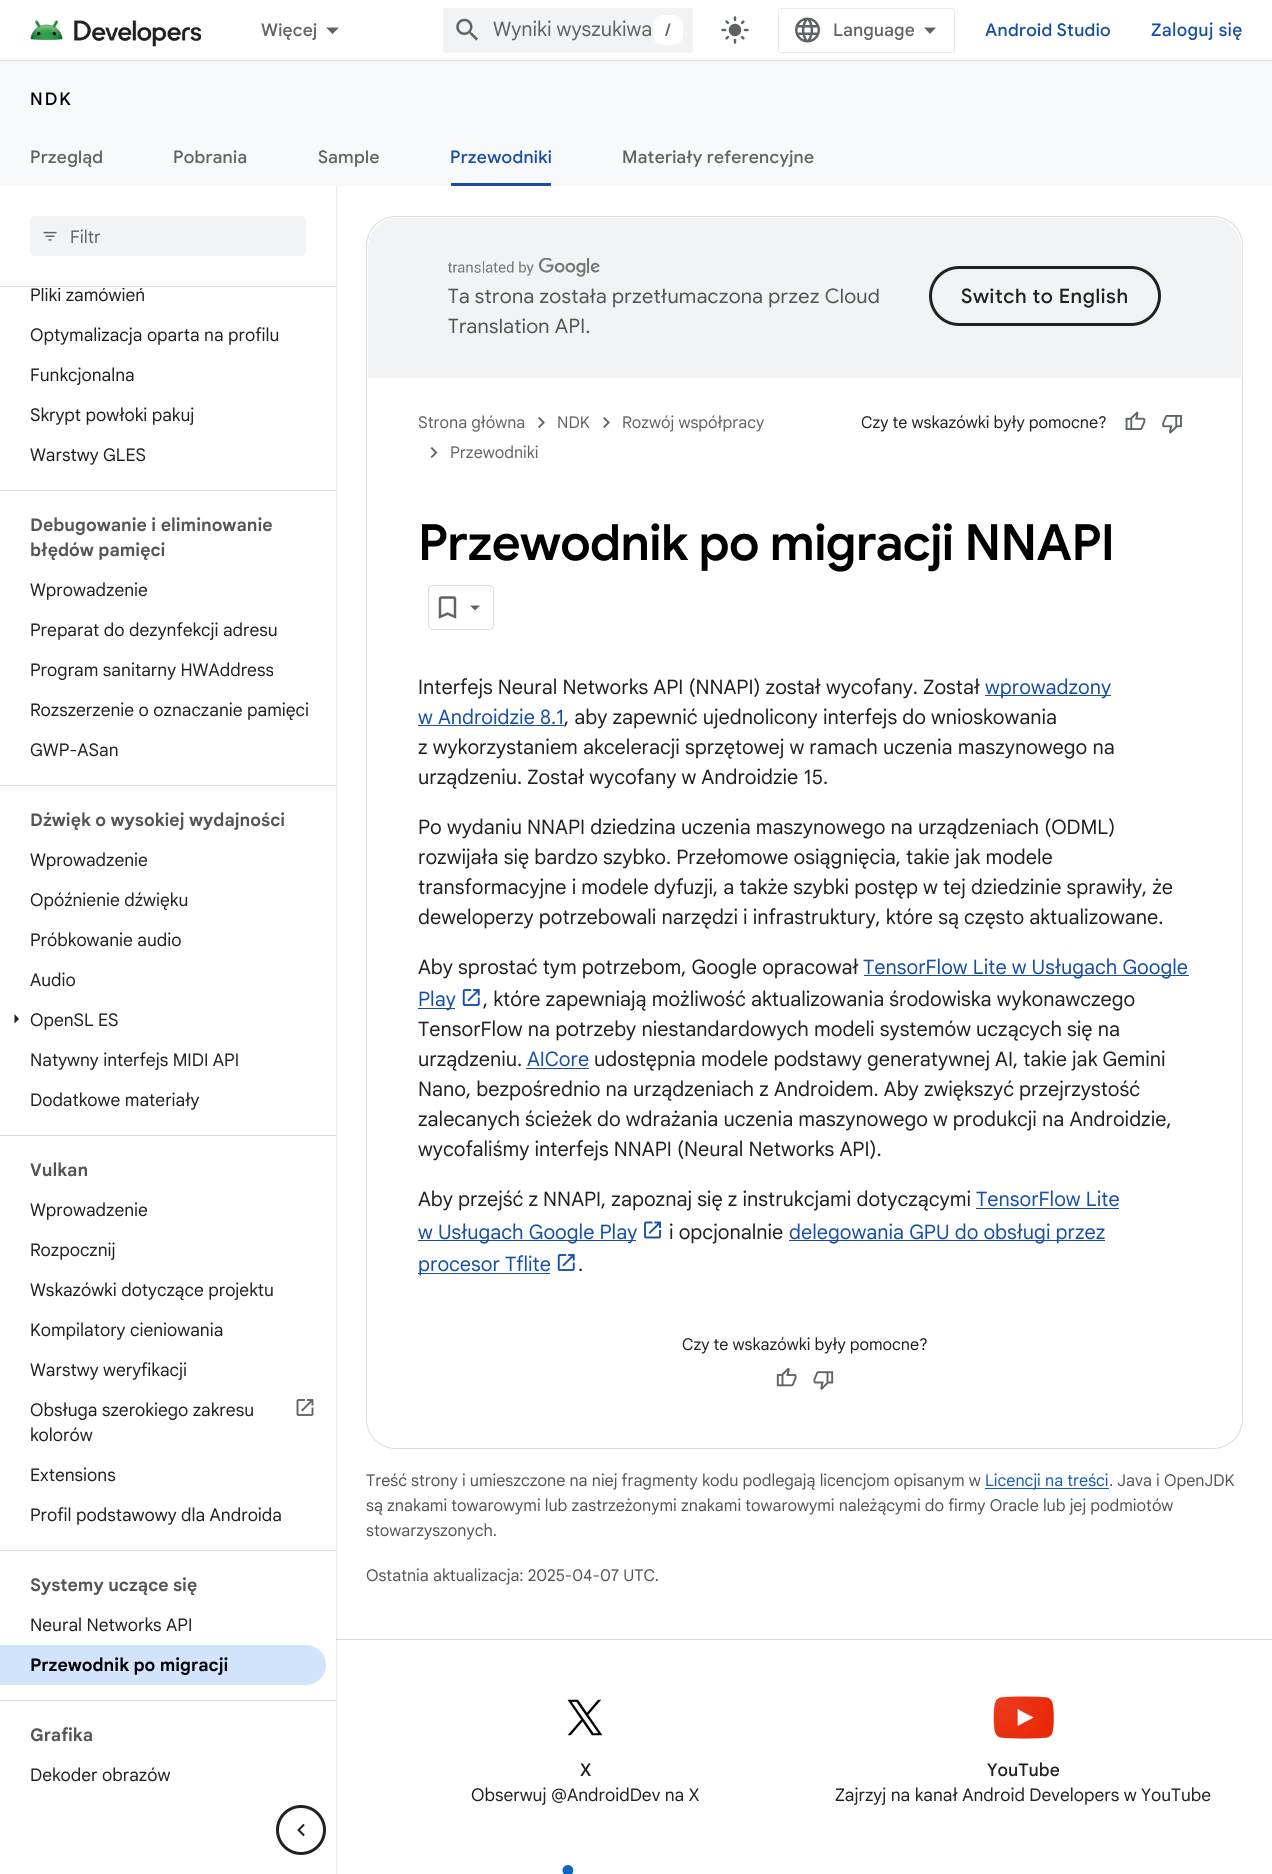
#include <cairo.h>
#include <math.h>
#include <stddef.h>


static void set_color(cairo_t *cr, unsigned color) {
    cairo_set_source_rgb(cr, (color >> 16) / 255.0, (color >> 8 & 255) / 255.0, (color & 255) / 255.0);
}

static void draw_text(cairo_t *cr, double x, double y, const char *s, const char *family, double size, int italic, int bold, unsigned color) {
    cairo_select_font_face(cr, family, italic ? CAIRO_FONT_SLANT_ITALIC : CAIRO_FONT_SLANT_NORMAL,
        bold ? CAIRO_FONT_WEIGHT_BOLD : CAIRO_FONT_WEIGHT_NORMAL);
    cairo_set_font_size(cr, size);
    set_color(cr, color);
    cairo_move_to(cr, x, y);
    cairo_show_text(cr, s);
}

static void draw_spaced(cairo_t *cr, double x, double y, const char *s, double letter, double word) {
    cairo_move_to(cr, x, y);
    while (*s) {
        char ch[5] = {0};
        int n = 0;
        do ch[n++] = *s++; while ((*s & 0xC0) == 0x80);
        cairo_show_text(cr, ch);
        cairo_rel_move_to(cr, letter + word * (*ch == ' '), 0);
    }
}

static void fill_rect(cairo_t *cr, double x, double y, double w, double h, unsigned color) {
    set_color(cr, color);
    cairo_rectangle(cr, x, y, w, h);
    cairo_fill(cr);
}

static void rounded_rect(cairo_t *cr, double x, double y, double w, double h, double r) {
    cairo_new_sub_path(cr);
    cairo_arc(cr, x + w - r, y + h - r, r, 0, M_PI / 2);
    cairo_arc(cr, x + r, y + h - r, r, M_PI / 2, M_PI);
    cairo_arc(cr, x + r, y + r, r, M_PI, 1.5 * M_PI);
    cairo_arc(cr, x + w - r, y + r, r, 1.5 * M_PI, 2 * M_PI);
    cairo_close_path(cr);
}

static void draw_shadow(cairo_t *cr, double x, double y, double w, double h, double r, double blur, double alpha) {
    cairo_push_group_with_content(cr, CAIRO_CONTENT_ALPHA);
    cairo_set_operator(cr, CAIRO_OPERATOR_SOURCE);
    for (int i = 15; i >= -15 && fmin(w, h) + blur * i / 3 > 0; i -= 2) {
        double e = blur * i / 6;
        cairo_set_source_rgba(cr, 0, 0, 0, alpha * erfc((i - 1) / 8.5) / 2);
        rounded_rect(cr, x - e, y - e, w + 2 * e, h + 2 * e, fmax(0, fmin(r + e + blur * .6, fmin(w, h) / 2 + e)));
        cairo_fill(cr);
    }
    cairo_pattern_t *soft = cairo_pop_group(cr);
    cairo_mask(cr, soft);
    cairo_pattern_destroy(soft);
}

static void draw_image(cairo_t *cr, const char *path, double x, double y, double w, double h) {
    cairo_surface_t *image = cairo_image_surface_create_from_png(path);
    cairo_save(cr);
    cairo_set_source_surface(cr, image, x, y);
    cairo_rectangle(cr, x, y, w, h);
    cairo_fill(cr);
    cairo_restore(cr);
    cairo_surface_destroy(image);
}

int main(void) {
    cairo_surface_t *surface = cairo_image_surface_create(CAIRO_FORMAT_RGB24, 1272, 1874);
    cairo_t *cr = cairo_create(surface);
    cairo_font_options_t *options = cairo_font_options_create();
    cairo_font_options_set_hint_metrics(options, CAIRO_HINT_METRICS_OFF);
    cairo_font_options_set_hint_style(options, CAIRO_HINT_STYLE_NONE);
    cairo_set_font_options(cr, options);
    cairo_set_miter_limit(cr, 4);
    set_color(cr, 0xFFFFFF);
    cairo_paint(cr);
    fill_rect(cr, 336, 1639, 936, 1, 0xDADCE0);
    cairo_save(cr);
    cairo_rectangle(cr, 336, 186, 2, 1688);
    cairo_clip(cr);
    set_color(cr, 0xBDC1C6);
    draw_shadow(cr, 0, 1, 336, 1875, 0, 1, 1);
    cairo_restore(cr);
    fill_rect(cr, 336, 0, 2, 60, 0xFFFFFF);
    fill_rect(cr, 0, 60, 1272, 1, 0xDADCE0);
    draw_image(cr, "assets/img1.png", 30, 20, 171, 27);
    cairo_select_font_face(cr, "Google Sans Medium", CAIRO_FONT_SLANT_NORMAL, CAIRO_FONT_WEIGHT_NORMAL);
    cairo_set_font_size(cr, 17.5);
    set_color(cr, 0x5F6368);
    draw_spaced(cr, 261, 36, "Więcej", 0.3, 0);
    cairo_new_path(cr);
    cairo_move_to(cr, 326, 27.5);
    cairo_line_to(cr, 339, 27.5);
    cairo_line_to(cr, 332.5, 34);
    cairo_close_path(cr);
    cairo_fill(cr);
    set_color(cr, 0xF1F3F4);
    rounded_rect(cr, 443, 8, 250, 45, 2.5);
    cairo_fill(cr);
    draw_image(cr, "assets/img2.png", 456, 18, 22, 23);
    draw_text(cr, 493, 36, "Wyniki wyszukiwa", "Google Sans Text", 20, 0, 0, 0x5F6368);
    set_color(cr, 0xFFFFFF);
    rounded_rect(cr, 653, 15, 30, 30, 10);
    cairo_fill(cr);
    draw_text(cr, 665, 36, "/", "Google Sans Medium", 17.5, 0, 0, 0x5F6368);
    draw_image(cr, "assets/img3.png", 721, 16, 28, 28);
    rounded_rect(cr, 778.5, 8.5, 176, 44, 2);
    set_color(cr, 0xE8EAED);
    cairo_set_line_width(cr, 1);
    cairo_stroke(cr);
    draw_image(cr, "assets/img4.png", 795, 17, 25, 26);
    draw_text(cr, 833, 36, "Language", "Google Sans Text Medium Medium", 17.5, 0, 0, 0x5F6368);
    cairo_new_path(cr);
    cairo_move_to(cr, 930, 34);
    cairo_line_to(cr, 924, 27.5);
    cairo_line_to(cr, 936, 27.5);
    cairo_close_path(cr);
    cairo_fill(cr);
    cairo_select_font_face(cr, "Google Sans Medium", CAIRO_FONT_SLANT_NORMAL, CAIRO_FONT_WEIGHT_NORMAL);
    set_color(cr, 0x174EA6);
    draw_spaced(cr, 985, 36, "Android Studio", 0.3, 0);
    cairo_select_font_face(cr, "Google Sans Text Medium Medium", CAIRO_FONT_SLANT_NORMAL, CAIRO_FONT_WEIGHT_NORMAL);
    draw_spaced(cr, 1151, 36, "Zaloguj się", 0.3, 0);
    fill_rect(cr, 0, 61, 1272, 125, 0xF8F9FA);
    cairo_select_font_face(cr, "Google Sans Medium", CAIRO_FONT_SLANT_NORMAL, CAIRO_FONT_WEIGHT_NORMAL);
    set_color(cr, 0x000000);
    draw_spaced(cr, 30, 105, "NDK", 2, 0);
    set_color(cr, 0x5F6368);
    draw_spaced(cr, 30, 163, "Przegląd", 0.3, 0);
    draw_spaced(cr, 173, 163, "Pobrania", 0.3, 0);
    draw_spaced(cr, 318, 163, "Sample", 0.3, 0);
    set_color(cr, 0x174EA6);
    draw_spaced(cr, 450, 163, "Przewodniki", 0.3, 0);
    fill_rect(cr, 451, 183, 100, 3, 0x174EA6);
    set_color(cr, 0x5F6368);
    draw_spaced(cr, 622, 163, "Materiały referencyjne", 0.3, 0);
    draw_text(cr, 30, 301, "Pliki zamówień", "Google Sans Text", 17.5, 0, 0, 0x212121);
    fill_rect(cr, 41, 287, 102, 1, 0xFFFFFF);
    fill_rect(cr, 0, 286, 336, 1, 0xDADCE0);
    set_color(cr, 0xF1F3F4);
    rounded_rect(cr, 30, 216, 276, 40, 5);
    cairo_fill(cr);
    draw_image(cr, "assets/img5.png", 43, 231, 14, 10);
    draw_text(cr, 70, 243, "Filtr", "Google Sans Text", 17.5, 0, 0, 0x5F6368);
    draw_text(cr, 30, 341, "Optymalizacja oparta na profilu", "Google Sans Text", 17.5, 0, 0, 0x212121);
    draw_text(cr, 30, 381, "Funkcjonalna", "Google Sans Text", 17.5, 0, 0, 0x212121);
    draw_text(cr, 30, 421, "Skrypt powłoki pakuj", "Google Sans Text", 17.5, 0, 0, 0x212121);
    draw_text(cr, 30, 461, "Warstwy GLES", "Google Sans Text", 17.5, 0, 0, 0x212121);
    fill_rect(cr, 0, 490, 336, 1, 0xDADCE0);
    draw_text(cr, 30, 531, "Debugowanie i eliminowanie", "Google Sans Text", 17.5, 0, 1, 0x545555);
    draw_text(cr, 30, 556, "błędów pamięci", "Google Sans Text", 17.5, 0, 1, 0x545555);
    draw_text(cr, 30, 596, "Wprowadzenie", "Google Sans Text", 17.5, 0, 0, 0x212121);
    draw_text(cr, 30, 636, "Preparat do dezynfekcji adresu", "Google Sans Text", 17.5, 0, 0, 0x212121);
    draw_text(cr, 30, 676, "Program sanitarny HWAddress", "Google Sans Text", 17.5, 0, 0, 0x212121);
    draw_text(cr, 30, 716, "Rozszerzenie o oznaczanie pamięci", "Google Sans Text", 17.5, 0, 0, 0x212121);
    draw_text(cr, 30, 756, "GWP-ASan", "Google Sans Text", 17.5, 0, 0, 0x212121);
    fill_rect(cr, 0, 785, 336, 1, 0xDADCE0);
    draw_text(cr, 30, 826, "Dźwięk o wysokiej wydajności", "Google Sans Text", 17.5, 0, 1, 0x545555);
    draw_text(cr, 30, 866, "Wprowadzenie", "Google Sans Text", 17.5, 0, 0, 0x212121);
    draw_text(cr, 30, 906, "Opóźnienie dźwięku", "Google Sans Text", 17.5, 0, 0, 0x212121);
    draw_text(cr, 30, 946, "Próbkowanie audio", "Google Sans Text", 17.5, 0, 0, 0x212121);
    draw_text(cr, 30, 986, "Audio", "Google Sans Text", 17.5, 0, 0, 0x212121);
    set_color(cr, 0x202124);
    cairo_new_path(cr);
    cairo_move_to(cr, 14.5, 1023.5);
    cairo_line_to(cr, 14.5, 1014);
    cairo_line_to(cr, 19, 1019);
    cairo_close_path(cr);
    cairo_fill(cr);
    draw_text(cr, 30, 1026, "OpenSL ES", "Google Sans Text", 17.5, 0, 0, 0x212121);
    draw_text(cr, 30, 1066, "Natywny interfejs MIDI API", "Google Sans Text", 17.5, 0, 0, 0x212121);
    draw_text(cr, 30, 1106, "Dodatkowe materiały", "Google Sans Text", 17.5, 0, 0, 0x212121);
    fill_rect(cr, 0, 1135, 336, 1, 0xDADCE0);
    draw_text(cr, 30, 1176, "Vulkan", "Google Sans Text", 17.5, 0, 1, 0x545555);
    draw_text(cr, 30, 1216, "Wprowadzenie", "Google Sans Text", 17.5, 0, 0, 0x212121);
    draw_text(cr, 30, 1256, "Rozpocznij", "Google Sans Text", 17.5, 0, 0, 0x212121);
    draw_text(cr, 30, 1296, "Wskazówki dotyczące projektu", "Google Sans Text", 17.5, 0, 0, 0x212121);
    draw_text(cr, 30, 1336, "Kompilatory cieniowania", "Google Sans Text", 17.5, 0, 0, 0x212121);
    draw_text(cr, 30, 1376, "Warstwy weryfikacji", "Google Sans Text", 17.5, 0, 0, 0x212121);
    draw_text(cr, 30, 1416, "Obsługa szerokiego zakresu", "Google Sans Text", 17.5, 0, 0, 0x212121);
    draw_text(cr, 30, 1441, "kolorów", "Google Sans Text", 17.5, 0, 0, 0x212121);
    draw_image(cr, "assets/img6.png", 296, 1399, 18, 17);
    draw_text(cr, 30, 1481, "Extensions", "Google Sans Text", 17.5, 0, 0, 0x212121);
    draw_text(cr, 30, 1521, "Profil podstawowy dla Androida", "Google Sans Text", 17.5, 0, 0, 0x212121);
    fill_rect(cr, 0, 1550, 336, 1, 0xDADCE0);
    draw_text(cr, 30, 1591, "Systemy uczące się", "Google Sans Text", 17.5, 0, 1, 0x545555);
    draw_text(cr, 30, 1631, "Neural Networks API", "Google Sans Text", 17.5, 0, 0, 0x212121);
    set_color(cr, 0xD2E3FC);
    cairo_new_path(cr);
    cairo_move_to(cr, 0, 1645);
    cairo_line_to(cr, 306, 1645);
    cairo_curve_to(cr, 317, 1645, 326, 1654, 326, 1665);
    cairo_curve_to(cr, 326, 1676, 317, 1685, 306, 1685);
    cairo_line_to(cr, 0, 1685);
    cairo_close_path(cr);
    cairo_fill(cr);
    draw_text(cr, 30, 1671, "Przewodnik po migracji", "Google Sans Text", 17.5, 0, 1, 0x000000);
    fill_rect(cr, 0, 1700, 336, 1, 0xDADCE0);
    draw_text(cr, 30, 1741, "Grafika", "Google Sans Text", 17.5, 0, 1, 0x545555);
    draw_text(cr, 30, 1781, "Dekoder obrazów", "Google Sans Text", 17.5, 0, 0, 0x212121);
    rounded_rect(cr, 366.5, 216.5, 876, 1232, 29.5);
    set_color(cr, 0xDADCE0);
    cairo_stroke(cr);
    set_color(cr, 0xF1F3F4);
    cairo_new_path(cr);
    cairo_move_to(cr, 398, 218);
    cairo_line_to(cr, 1211, 218);
    cairo_curve_to(cr, 1227.5, 218, 1241, 231.5, 1241, 248);
    cairo_line_to(cr, 1241, 378);
    cairo_line_to(cr, 368, 378);
    cairo_line_to(cr, 368, 248);
    cairo_curve_to(cr, 368, 231.5, 381.5, 218, 398, 218);
    cairo_close_path(cr);
    cairo_fill(cr);
    draw_image(cr, "assets/img7.png", 448, 258, 152, 19);
    cairo_select_font_face(cr, "Google Sans", CAIRO_FONT_SLANT_NORMAL, CAIRO_FONT_WEIGHT_NORMAL);
    cairo_set_font_size(cr, 20);
    set_color(cr, 0x545555);
    draw_spaced(cr, 448, 303, "Ta strona została przetłumaczona przez Cloud", 0.3, 0);
    draw_spaced(cr, 448, 333, "Translation API.", 0.3, 0);
    rounded_rect(cr, 930.5, 267.5, 229, 57, 28.5);
    set_color(cr, 0x202124);
    cairo_set_line_width(cr, 3);
    cairo_stroke(cr);
    cairo_select_font_face(cr, "Google Sans Medium", CAIRO_FONT_SLANT_NORMAL, CAIRO_FONT_WEIGHT_NORMAL);
    set_color(cr, 0x212121);
    draw_spaced(cr, 961, 303, "Switch to English", 0.6, 0);
    draw_text(cr, 418, 428, "Strona główna", "Google Sans Text", 16.25, 0, 0, 0x5F6368);
    draw_image(cr, "assets/img8.png", 538, 417, 7, 11);
    draw_text(cr, 557, 428, "NDK", "Google Sans Text", 16.25, 0, 0, 0x5F6368);
    draw_image(cr, "assets/img8.png", 603, 417, 7, 11);
    draw_text(cr, 622, 428, "Rozwój współpracy", "Google Sans Text", 16.25, 0, 0, 0x5F6368);
    draw_image(cr, "assets/img9.png", 430, 447, 8, 11);
    draw_text(cr, 450, 458, "Przewodniki", "Google Sans Text", 16.25, 0, 0, 0x5F6368);
    draw_text(cr, 861, 428, "Czy te wskazówki były pomocne?", "Google Sans Text", 16.25, 0, 0, 0x212121);
    draw_image(cr, "assets/img10.png", 1125, 411, 21, 19);
    draw_image(cr, "assets/img11.png", 1162, 415, 20, 19);
    cairo_select_font_face(cr, "Google Sans SemiBold", CAIRO_FONT_SLANT_NORMAL, CAIRO_FONT_WEIGHT_NORMAL);
    cairo_set_font_size(cr, 50);
    set_color(cr, 0x000000);
    draw_spaced(cr, 418, 560, "Przewodnik po migracji NNAPI", -0.6, 0);
    rounded_rect(cr, 428.5, 585.5, 65, 44, 4.5);
    set_color(cr, 0xDADCE0);
    cairo_set_line_width(cr, 1);
    cairo_stroke(cr);
    draw_image(cr, "assets/img12.png", 438, 596, 19, 23);
    set_color(cr, 0x5F6368);
    cairo_new_path(cr);
    cairo_move_to(cr, 470, 605.5);
    cairo_line_to(cr, 480, 605.5);
    cairo_line_to(cr, 475, 610.5);
    cairo_close_path(cr);
    cairo_fill(cr);
    draw_text(cr, 418, 694, "Interfejs Neural Networks API (NNAPI) został wycofany. Został", "Google Sans Text", 20, 0, 0, 0x212121);
    fill_rect(cr, 985, 695, 126, 1, 0x174EA6);
    draw_text(cr, 985, 694, "wprowadzony", "Google Sans Text", 20, 0, 0, 0x174EA6);
    draw_text(cr, 418, 724, "w Androidzie 8.1", "Google Sans Text", 20, 0, 0, 0x174EA6);
    fill_rect(cr, 418, 725, 146, 1, 0x174EA6);
    draw_text(cr, 564, 724, ", aby zapewnić ujednolicony interfejs do wnioskowania", "Google Sans Text", 20, 0, 0, 0x212121);
    draw_text(cr, 418, 754, "z wykorzystaniem akceleracji sprzętowej w ramach uczenia maszynowego na", "Google Sans Text", 20, 0, 0, 0x212121);
    draw_text(cr, 418, 784, "urządzeniu. Został wycofany w Androidzie 15.", "Google Sans Text", 20, 0, 0, 0x212121);
    draw_text(cr, 418, 834, "Po wydaniu NNAPI dziedzina uczenia maszynowego na urządzeniach (ODML)", "Google Sans Text", 20, 0, 0, 0x212121);
    draw_text(cr, 418, 864, "rozwijała się bardzo szybko. Przełomowe osiągnięcia, takie jak modele", "Google Sans Text", 20, 0, 0, 0x212121);
    draw_text(cr, 418, 894, "transformacyjne i modele dyfuzji, a także szybki postęp w tej dziedzinie sprawiły, że", "Google Sans Text", 20, 0, 0, 0x212121);
    draw_text(cr, 418, 924, "deweloperzy potrzebowali narzędzi i infrastruktury, które są często aktualizowane.", "Google Sans Text", 20, 0, 0, 0x212121);
    draw_text(cr, 418, 974, "Aby sprostać tym potrzebom, Google opracował", "Google Sans Text", 20, 0, 0, 0x212121);
    fill_rect(cr, 864, 975, 325, 1, 0x174EA6);
    draw_text(cr, 863, 974, "TensorFlow Lite w Usługach Google", "Google Sans Text", 20, 0, 0, 0x174EA6);
    fill_rect(cr, 418, 1008, 37, 1, 0x174EA6);
    draw_text(cr, 418, 1006, "Play", "Google Sans Text", 20, 0, 0, 0x174EA6);
    draw_image(cr, "assets/img13.png", 462, 989, 18, 17);
    draw_text(cr, 483, 1006, ", które zapewniają możliwość aktualizowania środowiska wykonawczego", "Google Sans Text", 20, 0, 0, 0x212121);
    draw_text(cr, 418, 1036, "TensorFlow na potrzeby niestandardowych modeli systemów uczących się na", "Google Sans Text", 20, 0, 0, 0x212121);
    draw_text(cr, 418, 1066, "urządzeniu.", "Google Sans Text", 20, 0, 0, 0x212121);
    draw_text(cr, 527, 1066, "AICore", "Google Sans Text", 20, 0, 0, 0x174EA6);
    fill_rect(cr, 526, 1068, 63, 1, 0x174EA6);
    draw_text(cr, 594, 1066, "udostępnia modele podstawy generatywnej AI, takie jak Gemini", "Google Sans Text", 20, 0, 0, 0x212121);
    draw_text(cr, 418, 1096, "Nano, bezpośrednio na urządzeniach z Androidem. Aby zwiększyć przejrzystość", "Google Sans Text", 20, 0, 0, 0x212121);
    draw_text(cr, 418, 1126, "zalecanych ścieżek do wdrażania uczenia maszynowego w produkcji na Androidzie,", "Google Sans Text", 20, 0, 0, 0x212121);
    draw_text(cr, 418, 1156, "wycofaliśmy interfejs NNAPI (Neural Networks API).", "Google Sans Text", 20, 0, 0, 0x212121);
    draw_text(cr, 418, 1206, "Aby przejść z NNAPI, zapoznaj się z instrukcjami dotyczącymi", "Google Sans Text", 20, 0, 0, 0x212121);
    draw_text(cr, 976, 1206, "TensorFlow Lite", "Google Sans Text", 20, 0, 0, 0x174EA6);
    fill_rect(cr, 976, 1208, 143, 1, 0x174EA6);
    fill_rect(cr, 418, 1240, 218, 1, 0x174EA6);
    draw_text(cr, 418, 1239, "w Usługach Google Play", "Google Sans Text", 20, 0, 0, 0x174EA6);
    draw_image(cr, "assets/img14.png", 644, 1221, 17, 18);
    fill_rect(cr, 789, 1240, 316, 1, 0x174EA6);
    draw_text(cr, 789, 1239, "delegowania GPU do obsługi przez", "Google Sans Text", 20, 0, 0, 0x174EA6);
    fill_rect(cr, 418, 1273, 132, 1, 0x174EA6);
    draw_text(cr, 418, 1271, "procesor Tflite", "Google Sans Text", 20, 0, 0, 0x174EA6);
    draw_image(cr, "assets/img13.png", 557, 1254, 18, 17);
    draw_text(cr, 669, 1239, "i opcjonalnie", "Google Sans Text", 20, 0, 0, 0x212121);
    draw_text(cr, 578, 1271, ".", "Google Sans Text", 20, 0, 0, 0x212121);
    draw_text(cr, 682, 1350, "Czy te wskazówki były pomocne?", "Google Sans Text", 16.25, 0, 0, 0x212121);
    draw_image(cr, "assets/img15.png", 776, 1368, 21, 19);
    draw_image(cr, "assets/img16.png", 813, 1371, 21, 19);
    draw_text(cr, 366, 1486, "Treść strony i umieszczone na niej fragmenty kodu podlegają licencjom opisanym w", "Google Sans Text", 16.25, 0, 0, 0x545555);
    fill_rect(cr, 985, 1488, 124, 1, 0x185ABC);
    draw_text(cr, 985, 1486, "Licencji na treści", "Google Sans Text", 16.25, 0, 0, 0x185ABC);
    draw_text(cr, 1109, 1486, ". Java i OpenJDK", "Google Sans Text", 16.25, 0, 0, 0x545555);
    draw_text(cr, 366, 1511, "są znakami towarowymi lub zastrzeżonymi znakami towarowymi należącymi do firmy Oracle lub jej podmiotów", "Google Sans Text", 16.25, 0, 0, 0x545555);
    draw_text(cr, 366, 1536, "stowarzyszonych.", "Google Sans Text", 16.25, 0, 0, 0x545555);
    draw_text(cr, 366, 1581, "Ostatnia aktualizacja: 2025-04-07 UTC.", "Google Sans Text", 16.25, 0, 0, 0x545555);
    draw_image(cr, "assets/img17.png", 567, 1699, 36, 37);
    draw_text(cr, 580, 1776, "X", "Google Sans Text Medium Medium", 17.5, 0, 0, 0x212121);
    draw_text(cr, 471, 1801, "Obserwuj @AndroidDev na X", "Google Sans Text", 17.5, 0, 0, 0x212121);
    draw_image(cr, "assets/img18.png", 993, 1696, 61, 43);
    draw_text(cr, 987, 1776, "YouTube", "Google Sans Text Medium Medium", 17.5, 0, 0, 0x212121);
    draw_text(cr, 835, 1801, "Zajrzyj na kanał Android Developers w YouTube", "Google Sans Text", 17.5, 0, 0, 0x212121);
    draw_image(cr, "assets/img19.png", 562, 1865, 12, 9);
    cairo_arc(cr, 301, 1830, 23.5, 0, 2 * M_PI);
    set_color(cr, 0x202124);
    cairo_set_line_width(cr, 3);
    cairo_stroke(cr);
    draw_image(cr, "assets/img20.png", 297, 1823, 8, 14);
    cairo_surface_write_to_png(surface, "output.png");
    cairo_font_options_destroy(options);
    cairo_destroy(cr);
    cairo_surface_destroy(surface);
    return 0;
}
